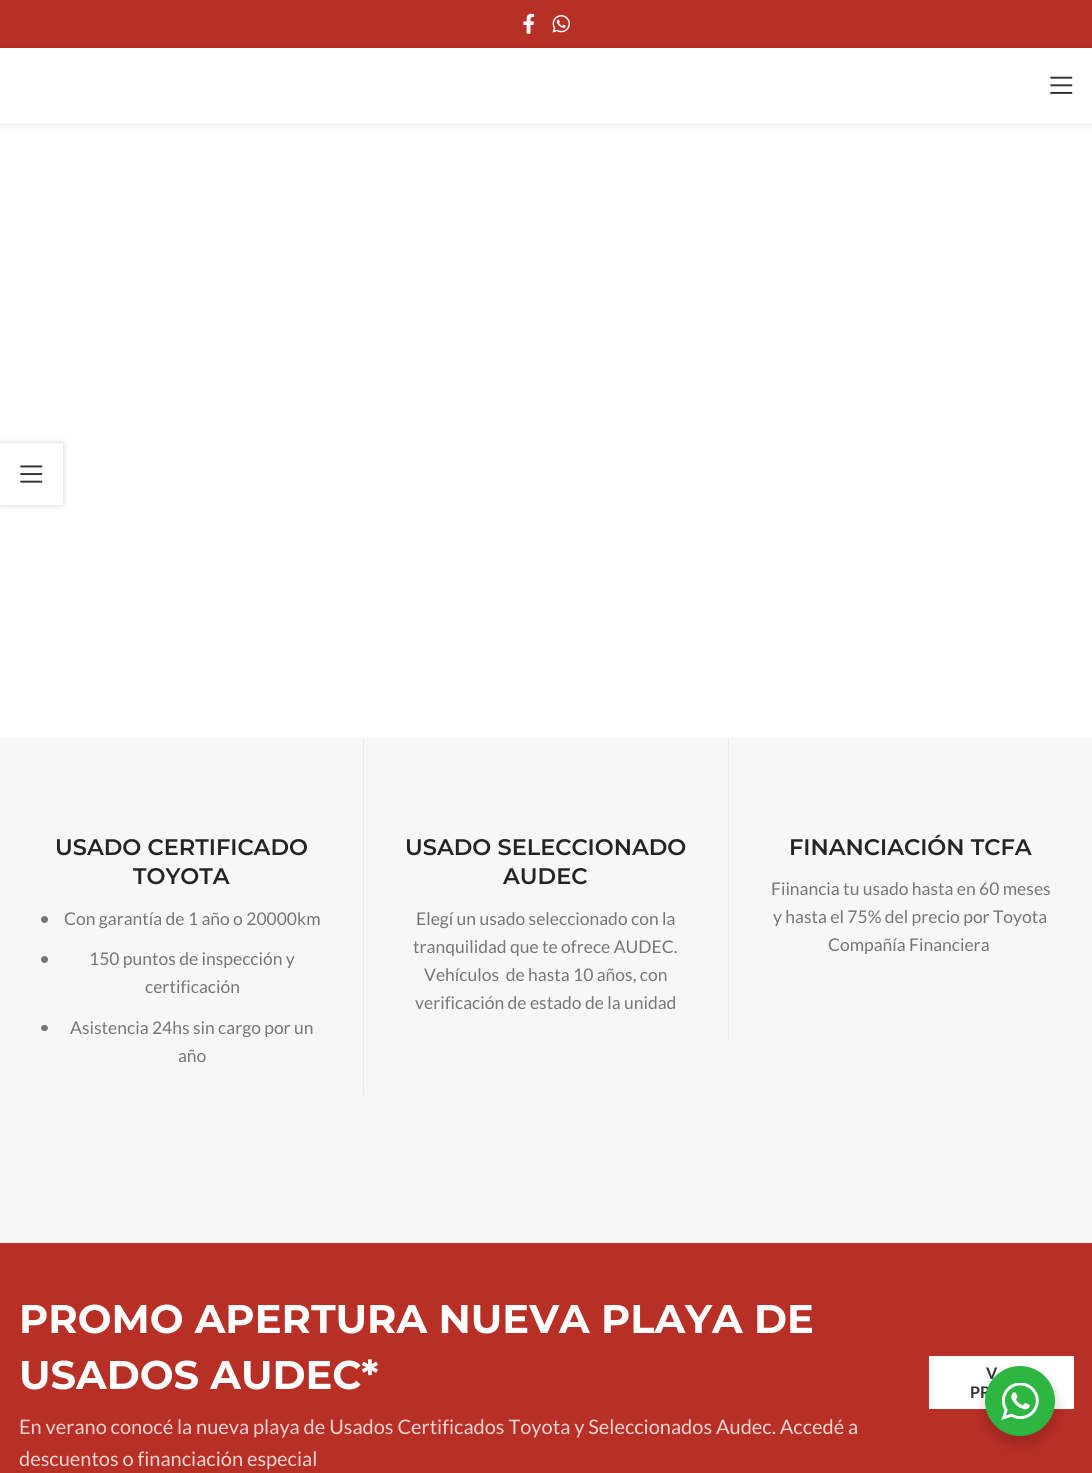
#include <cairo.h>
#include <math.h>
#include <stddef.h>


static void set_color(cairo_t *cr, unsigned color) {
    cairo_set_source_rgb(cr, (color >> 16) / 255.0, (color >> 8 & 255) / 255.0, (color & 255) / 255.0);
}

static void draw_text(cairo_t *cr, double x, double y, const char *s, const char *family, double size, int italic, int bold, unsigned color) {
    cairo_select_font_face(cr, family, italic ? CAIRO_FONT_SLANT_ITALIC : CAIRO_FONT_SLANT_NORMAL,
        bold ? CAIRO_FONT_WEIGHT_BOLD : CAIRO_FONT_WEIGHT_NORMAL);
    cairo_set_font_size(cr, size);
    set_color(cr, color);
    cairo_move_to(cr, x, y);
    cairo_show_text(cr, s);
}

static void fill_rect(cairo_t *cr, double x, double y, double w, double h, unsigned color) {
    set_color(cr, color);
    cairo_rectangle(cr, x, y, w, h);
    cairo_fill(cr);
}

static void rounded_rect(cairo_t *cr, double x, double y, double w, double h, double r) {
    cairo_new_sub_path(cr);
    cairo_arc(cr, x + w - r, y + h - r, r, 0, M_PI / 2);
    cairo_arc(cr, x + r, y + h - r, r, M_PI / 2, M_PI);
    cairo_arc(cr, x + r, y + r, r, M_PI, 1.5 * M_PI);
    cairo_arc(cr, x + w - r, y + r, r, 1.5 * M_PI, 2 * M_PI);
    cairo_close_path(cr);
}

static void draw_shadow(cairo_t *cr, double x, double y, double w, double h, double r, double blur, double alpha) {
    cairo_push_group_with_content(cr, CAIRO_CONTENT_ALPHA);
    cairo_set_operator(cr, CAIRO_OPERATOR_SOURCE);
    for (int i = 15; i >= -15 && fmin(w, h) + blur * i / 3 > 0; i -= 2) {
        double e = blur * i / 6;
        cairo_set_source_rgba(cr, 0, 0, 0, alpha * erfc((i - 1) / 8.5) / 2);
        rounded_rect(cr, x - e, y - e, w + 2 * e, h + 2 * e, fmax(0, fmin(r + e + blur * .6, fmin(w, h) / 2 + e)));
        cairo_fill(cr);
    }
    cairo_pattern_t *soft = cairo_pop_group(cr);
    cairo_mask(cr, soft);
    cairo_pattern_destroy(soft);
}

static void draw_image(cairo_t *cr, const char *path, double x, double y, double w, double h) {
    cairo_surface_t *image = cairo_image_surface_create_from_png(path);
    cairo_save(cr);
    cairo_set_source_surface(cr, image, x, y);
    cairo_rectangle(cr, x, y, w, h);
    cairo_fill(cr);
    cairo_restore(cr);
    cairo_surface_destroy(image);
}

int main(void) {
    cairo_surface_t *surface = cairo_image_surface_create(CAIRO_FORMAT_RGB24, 1092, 1473);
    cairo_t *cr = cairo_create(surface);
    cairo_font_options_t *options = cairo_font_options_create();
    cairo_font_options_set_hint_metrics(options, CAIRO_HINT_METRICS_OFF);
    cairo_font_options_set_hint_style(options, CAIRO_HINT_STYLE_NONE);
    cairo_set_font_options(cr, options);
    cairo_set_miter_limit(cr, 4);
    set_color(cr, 0xFFFFFF);
    cairo_paint(cr);
    cairo_save(cr);
    cairo_set_fill_rule(cr, CAIRO_FILL_RULE_EVEN_ODD);
    cairo_new_path(cr);
    cairo_move_to(cr, 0, 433);
    cairo_line_to(cr, 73, 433);
    cairo_line_to(cr, 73, 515);
    cairo_line_to(cr, 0, 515);
    cairo_close_path(cr);
    cairo_move_to(cr, 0, 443);
    cairo_line_to(cr, 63, 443);
    cairo_line_to(cr, 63, 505);
    cairo_line_to(cr, 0, 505);
    cairo_close_path(cr);
    cairo_clip(cr);
    set_color(cr, 0x000000);
    draw_shadow(cr, 0, 443, 63, 62, 0, 3, 0.17);
    cairo_restore(cr);
    cairo_set_source_rgba(cr, 1, 1, 1, 0.9);
    cairo_rectangle(cr, 62, 443, 1, 62);
    cairo_fill(cr);
    draw_image(cr, "assets/img1.png", 20, 465, 23, 18);
    fill_rect(cr, 0, 0, 1092, 48, 0xB82F26);
    set_color(cr, 0x000000);
    draw_shadow(cr, 0, 49, 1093, 75, 0, 5, 0.1);
    draw_image(cr, "assets/img2.png", 523, 13, 12, 21);
    draw_image(cr, "assets/img3.png", 552, 15, 18, 18);
    fill_rect(cr, 0, 48, 1092, 75, 0xFFFFFF);
    draw_image(cr, "assets/img4.png", 1050, 76, 23, 18);
    fill_rect(cr, 0, 738, 1092, 505, 0xF7F7F7);
    fill_rect(cr, 363, 738, 1, 357, 0xEAEAEA);
    draw_text(cr, 55, 855, "USADO CERTIFICADO", "Montserrat SemiBold", 22.5, 0, 0, 0x242424);
    draw_text(cr, 133, 884, "TOYOTA", "Montserrat SemiBold", 22.5, 0, 0, 0x242424);
    set_color(cr, 0x767676);
    cairo_new_path(cr);
    cairo_arc(cr, 44.5, 919.5, 3.5, 0, 2 * M_PI);
    cairo_fill(cr);
    draw_text(cr, 64, 925, "Con garantía de 1 año o 20000km", "Lato", 17.5, 0, 0, 0x767676);
    cairo_new_path(cr);
    cairo_arc(cr, 44.5, 959.5, 3.5, 0, 2 * M_PI);
    cairo_fill(cr);
    draw_text(cr, 89, 965, "150 puntos de inspección y", "Lato", 17.5, 0, 0, 0x767676);
    draw_text(cr, 145, 993, "certificación", "Lato", 17.5, 0, 0, 0x767676);
    rounded_rect(cr, 41, 1025, 7, 6, 3);
    cairo_fill(cr);
    draw_text(cr, 70, 1034, "Asistencia 24hs sin cargo por un", "Lato", 17.5, 0, 0, 0x767676);
    draw_text(cr, 178, 1062, "año", "Lato", 17.5, 0, 0, 0x767676);
    fill_rect(cr, 728, 738, 1, 303, 0xEAEAEA);
    draw_text(cr, 405, 855, "USADO SELECCIONADO", "Montserrat SemiBold", 22.5, 0, 0, 0x242424);
    draw_text(cr, 503, 884, "AUDEC", "Montserrat SemiBold", 22.5, 0, 0, 0x242424);
    draw_text(cr, 416, 925, "Elegí un usado seleccionado con la", "Lato", 17.5, 0, 0, 0x767676);
    draw_text(cr, 413, 953, "tranquilidad que te ofrece AUDEC.", "Lato", 17.5, 0, 0, 0x767676);
    draw_text(cr, 424, 981, "Vehículos  de hasta 10 años, con", "Lato", 17.5, 0, 0, 0x767676);
    draw_text(cr, 415, 1009, "verificación de estado de la unidad", "Lato", 17.5, 0, 0, 0x767676);
    draw_text(cr, 789, 855, "FINANCIACIÓN TCFA", "Montserrat SemiBold", 22.5, 0, 0, 0x242424);
    draw_text(cr, 771, 895, "Fiinancia tu usado hasta en 60 meses", "Lato", 17.5, 0, 0, 0x767676);
    draw_text(cr, 773, 923, "y hasta el 75% del precio por Toyota", "Lato", 17.5, 0, 0, 0x767676);
    draw_text(cr, 828, 951, "Compañía Financiera", "Lato", 17.5, 0, 0, 0x767676);
    fill_rect(cr, 0, 1243, 1092, 230, 0xB82F26);
    draw_text(cr, 19, 1333, "PROMO APERTURA NUEVA PLAYA DE", "Montserrat", 40, 0, 1, 0xFFFFFF);
    draw_text(cr, 19, 1389, "USADOS AUDEC*", "Montserrat", 40, 0, 1, 0xFFFFFF);
    draw_text(cr, 19, 1434, "En verano conocé la nueva playa de Usados Certificados Toyota y Seleccionados Audec. Accedé a", "Lato", 20, 0, 0, 0xF1D5D4);
    draw_text(cr, 19, 1466, "descuentos o financiación especial", "Lato", 20, 0, 0, 0xF1D5D4);
    fill_rect(cr, 929, 1356, 145, 53, 0xFFFFFF);
    draw_text(cr, 986, 1379, "V", "Lato", 16, 0, 1, 0x333333);
    draw_text(cr, 970, 1398, "PR", "Lato", 16, 0, 1, 0x333333);
    set_color(cr, 0x000000);
    draw_shadow(cr, 983, 1371, 75, 75, 37.5, 5, 0.14);
    set_color(cr, 0x2DB742);
    cairo_arc(cr, 1020, 1401, 35, 0, 2 * M_PI);
    cairo_fill(cr);
    draw_image(cr, "assets/img5.png", 1001, 1383, 38, 37);
    cairo_surface_write_to_png(surface, "output.png");
    cairo_font_options_destroy(options);
    cairo_destroy(cr);
    cairo_surface_destroy(surface);
    return 0;
}
